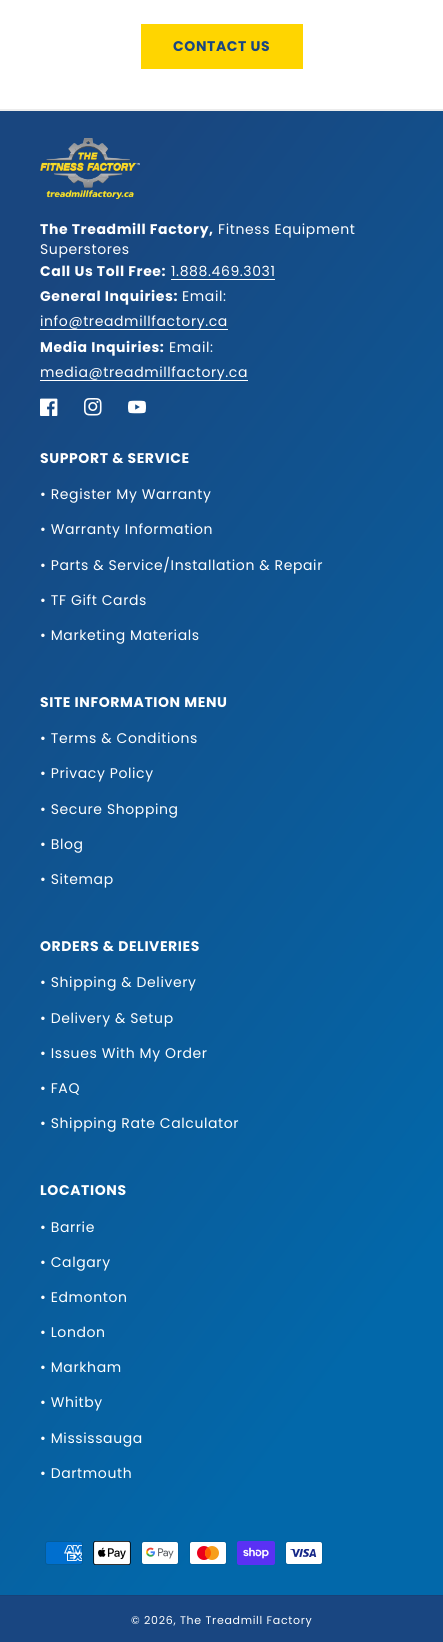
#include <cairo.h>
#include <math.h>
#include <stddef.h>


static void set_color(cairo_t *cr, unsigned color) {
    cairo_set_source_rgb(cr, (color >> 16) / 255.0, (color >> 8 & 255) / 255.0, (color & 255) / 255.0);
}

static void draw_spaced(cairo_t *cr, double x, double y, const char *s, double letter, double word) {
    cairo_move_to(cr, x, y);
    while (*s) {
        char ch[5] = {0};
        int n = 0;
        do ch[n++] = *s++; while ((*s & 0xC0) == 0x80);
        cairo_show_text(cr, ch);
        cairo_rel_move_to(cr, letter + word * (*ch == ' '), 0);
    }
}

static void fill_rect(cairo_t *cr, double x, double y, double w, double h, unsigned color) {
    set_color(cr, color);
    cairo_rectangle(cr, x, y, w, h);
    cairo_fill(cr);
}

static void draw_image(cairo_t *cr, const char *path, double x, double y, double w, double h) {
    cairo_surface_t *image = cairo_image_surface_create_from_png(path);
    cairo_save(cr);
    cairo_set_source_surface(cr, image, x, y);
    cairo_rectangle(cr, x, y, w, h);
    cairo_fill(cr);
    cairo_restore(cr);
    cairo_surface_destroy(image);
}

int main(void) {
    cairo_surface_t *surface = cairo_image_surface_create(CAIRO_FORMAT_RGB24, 443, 1642);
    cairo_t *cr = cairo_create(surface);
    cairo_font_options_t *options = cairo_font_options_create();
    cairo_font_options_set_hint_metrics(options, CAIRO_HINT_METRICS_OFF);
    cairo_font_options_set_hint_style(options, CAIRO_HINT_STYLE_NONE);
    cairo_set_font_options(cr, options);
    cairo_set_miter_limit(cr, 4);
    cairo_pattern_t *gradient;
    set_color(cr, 0xFFFFFF);
    cairo_paint(cr);
    fill_rect(cr, 0, 109, 443, 2, 0xECECEC);
    fill_rect(cr, 141, 24, 162, 45, 0xFFD500);
    cairo_select_font_face(cr, "Poppins", CAIRO_FONT_SLANT_NORMAL, CAIRO_FONT_WEIGHT_BOLD);
    cairo_set_font_size(cr, 14);
    set_color(cr, 0x194681);
    draw_spaced(cr, 173, 51, "CONTACT US", 0.6, 0);
    gradient = cairo_pattern_create_linear(-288, 493, 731, 1260);
    cairo_pattern_add_color_stop_rgba(gradient, 0.11, 0.098, 0.275, 0.498, 1);
    cairo_pattern_add_color_stop_rgba(gradient, 0.81, 0.008, 0.408, 0.667, 1);
    cairo_set_source(cr, gradient);
    cairo_pattern_destroy(gradient);
    cairo_rectangle(cr, 0, 111, 443, 1484);
    cairo_fill(cr);
    draw_image(cr, "assets/img1.png", 40, 138, 100, 61);
    set_color(cr, 0xFFFFFF);
    draw_spaced(cr, 40, 234, "The Treadmill Factory,", 0.6, 0);
    cairo_select_font_face(cr, "Poppins", CAIRO_FONT_SLANT_NORMAL, CAIRO_FONT_WEIGHT_NORMAL);
    draw_spaced(cr, 218, 234, "Fitness Equipment", 0.6, 0);
    draw_spaced(cr, 40, 254, "Superstores", 0.6, 0);
    cairo_select_font_face(cr, "Poppins", CAIRO_FONT_SLANT_NORMAL, CAIRO_FONT_WEIGHT_BOLD);
    draw_spaced(cr, 40, 276, "Call Us Toll Free:", 0.6, 0);
    cairo_select_font_face(cr, "Poppins", CAIRO_FONT_SLANT_NORMAL, CAIRO_FONT_WEIGHT_NORMAL);
    draw_spaced(cr, 171, 276, "1.888.469.3031", 0.6, 0);
    fill_rect(cr, 171, 279, 104, 1, 0xFFFFFF);
    cairo_select_font_face(cr, "Poppins", CAIRO_FONT_SLANT_NORMAL, CAIRO_FONT_WEIGHT_BOLD);
    draw_spaced(cr, 40, 301, "General Inquiries:", 0.6, 0);
    cairo_select_font_face(cr, "Poppins", CAIRO_FONT_SLANT_NORMAL, CAIRO_FONT_WEIGHT_NORMAL);
    draw_spaced(cr, 182, 301, "Email:", 0.6, 0);
    fill_rect(cr, 40, 329, 188, 1, 0xFFFFFF);
    draw_spaced(cr, 40, 326, "info@treadmillfactory.ca", 0.6, 0);
    cairo_select_font_face(cr, "Poppins", CAIRO_FONT_SLANT_NORMAL, CAIRO_FONT_WEIGHT_BOLD);
    draw_spaced(cr, 40, 352, "Media Inquiries:", 0.6, 0);
    cairo_select_font_face(cr, "Poppins", CAIRO_FONT_SLANT_NORMAL, CAIRO_FONT_WEIGHT_NORMAL);
    draw_spaced(cr, 169, 352, "Email:", 0.6, 0);
    fill_rect(cr, 40, 380, 208, 1, 0xFFFFFF);
    draw_spaced(cr, 40, 377, "media@treadmillfactory.ca", 0.6, 0);
    draw_image(cr, "assets/img2.png", 40, 398, 18, 18);
    draw_image(cr, "assets/img3.png", 84, 398, 18, 18);
    draw_image(cr, "assets/img4.png", 128, 400, 18, 14);
    cairo_select_font_face(cr, "Poppins", CAIRO_FONT_SLANT_NORMAL, CAIRO_FONT_WEIGHT_BOLD);
    draw_spaced(cr, 40, 463, "SUPPORT & SERVICE", 0.6, 0);
    cairo_select_font_face(cr, "Poppins", CAIRO_FONT_SLANT_NORMAL, CAIRO_FONT_WEIGHT_NORMAL);
    draw_spaced(cr, 40, 499, "• Register My Warranty", 0.6, 0);
    draw_spaced(cr, 40, 534, "• Warranty Information", 0.6, 0);
    draw_spaced(cr, 40, 570, "• Parts & Service/Installation & Repair", 0.6, 0);
    draw_spaced(cr, 40, 605, "• TF Gift Cards", 0.6, 0);
    draw_spaced(cr, 40, 640, "• Marketing Materials", 0.6, 0);
    cairo_select_font_face(cr, "Poppins", CAIRO_FONT_SLANT_NORMAL, CAIRO_FONT_WEIGHT_BOLD);
    draw_spaced(cr, 40, 707, "SITE INFORMATION MENU", 0.6, 0);
    cairo_select_font_face(cr, "Poppins", CAIRO_FONT_SLANT_NORMAL, CAIRO_FONT_WEIGHT_NORMAL);
    draw_spaced(cr, 40, 743, "• Terms & Conditions", 0.6, 0);
    draw_spaced(cr, 40, 778, "• Privacy Policy", 0.6, 0);
    draw_spaced(cr, 40, 814, "• Secure Shopping", 0.6, 0);
    draw_spaced(cr, 40, 849, "• Blog", 0.6, 0);
    draw_spaced(cr, 40, 884, "• Sitemap", 0.6, 0);
    cairo_select_font_face(cr, "Poppins", CAIRO_FONT_SLANT_NORMAL, CAIRO_FONT_WEIGHT_BOLD);
    draw_spaced(cr, 40, 951, "ORDERS & DELIVERIES", 0.6, 0);
    cairo_select_font_face(cr, "Poppins", CAIRO_FONT_SLANT_NORMAL, CAIRO_FONT_WEIGHT_NORMAL);
    draw_spaced(cr, 40, 987, "• Shipping & Delivery", 0.6, 0);
    draw_spaced(cr, 40, 1023, "• Delivery & Setup", 0.6, 0);
    draw_spaced(cr, 40, 1058, "• Issues With My Order", 0.6, 0);
    draw_spaced(cr, 40, 1093, "• FAQ", 0.6, 0);
    draw_spaced(cr, 40, 1128, "• Shipping Rate Calculator", 0.6, 0);
    cairo_select_font_face(cr, "Poppins", CAIRO_FONT_SLANT_NORMAL, CAIRO_FONT_WEIGHT_BOLD);
    draw_spaced(cr, 40, 1195, "LOCATIONS", 0.6, 0);
    cairo_select_font_face(cr, "Poppins", CAIRO_FONT_SLANT_NORMAL, CAIRO_FONT_WEIGHT_NORMAL);
    draw_spaced(cr, 40, 1232, "• Barrie", 0.6, 0);
    draw_spaced(cr, 40, 1267, "• Calgary", 0.6, 0);
    draw_spaced(cr, 40, 1302, "• Edmonton", 0.6, 0);
    draw_spaced(cr, 40, 1337, "• London", 0.6, 0);
    draw_spaced(cr, 40, 1372, "• Markham", 0.6, 0);
    draw_spaced(cr, 40, 1407, "• Whitby", 0.6, 0);
    draw_spaced(cr, 40, 1443, "• Mississauga", 0.6, 0);
    draw_spaced(cr, 40, 1478, "• Dartmouth", 0.6, 0);
    draw_image(cr, "assets/img5.png", 45, 1541, 38, 24);
    draw_image(cr, "assets/img6.png", 93, 1541, 38, 24);
    draw_image(cr, "assets/img7.png", 141, 1541, 38, 24);
    draw_image(cr, "assets/img8.png", 189, 1541, 38, 24);
    draw_image(cr, "assets/img9.png", 237, 1541, 38, 24);
    draw_image(cr, "assets/img10.png", 285, 1541, 38, 24);
    fill_rect(cr, 0, 1596, 443, 46, 0x194681);
    fill_rect(cr, 0, 1595, 443, 1, 0x184278);
    cairo_set_font_size(cr, 11);
    set_color(cr, 0xFFFFFF);
    draw_spaced(cr, 131, 1624, "© 2026, The Treadmill Factory", 0.7, 0);
    cairo_surface_write_to_png(surface, "output.png");
    cairo_font_options_destroy(options);
    cairo_destroy(cr);
    cairo_surface_destroy(surface);
    return 0;
}
